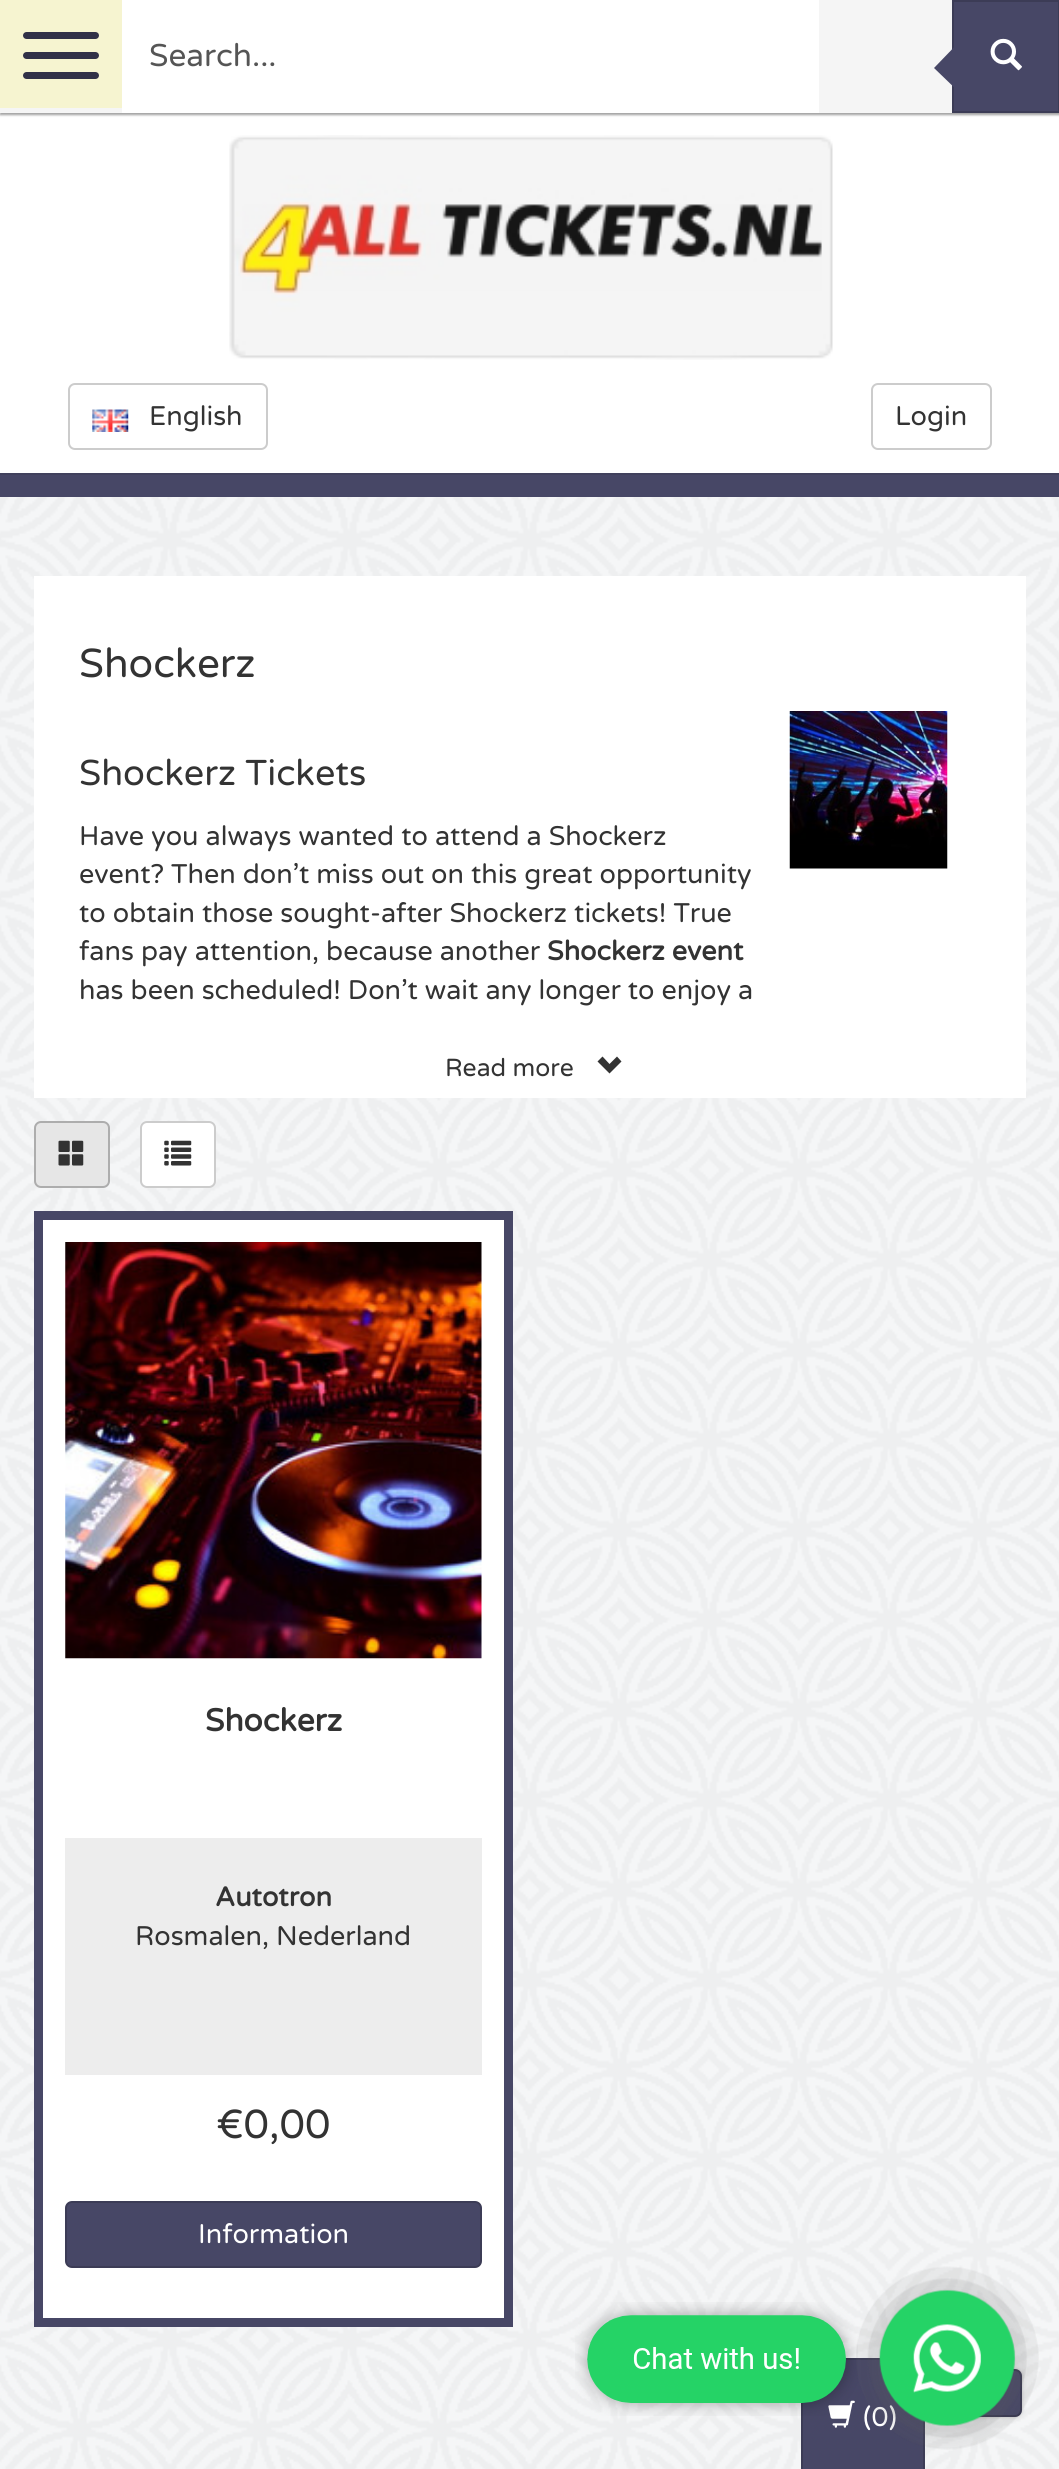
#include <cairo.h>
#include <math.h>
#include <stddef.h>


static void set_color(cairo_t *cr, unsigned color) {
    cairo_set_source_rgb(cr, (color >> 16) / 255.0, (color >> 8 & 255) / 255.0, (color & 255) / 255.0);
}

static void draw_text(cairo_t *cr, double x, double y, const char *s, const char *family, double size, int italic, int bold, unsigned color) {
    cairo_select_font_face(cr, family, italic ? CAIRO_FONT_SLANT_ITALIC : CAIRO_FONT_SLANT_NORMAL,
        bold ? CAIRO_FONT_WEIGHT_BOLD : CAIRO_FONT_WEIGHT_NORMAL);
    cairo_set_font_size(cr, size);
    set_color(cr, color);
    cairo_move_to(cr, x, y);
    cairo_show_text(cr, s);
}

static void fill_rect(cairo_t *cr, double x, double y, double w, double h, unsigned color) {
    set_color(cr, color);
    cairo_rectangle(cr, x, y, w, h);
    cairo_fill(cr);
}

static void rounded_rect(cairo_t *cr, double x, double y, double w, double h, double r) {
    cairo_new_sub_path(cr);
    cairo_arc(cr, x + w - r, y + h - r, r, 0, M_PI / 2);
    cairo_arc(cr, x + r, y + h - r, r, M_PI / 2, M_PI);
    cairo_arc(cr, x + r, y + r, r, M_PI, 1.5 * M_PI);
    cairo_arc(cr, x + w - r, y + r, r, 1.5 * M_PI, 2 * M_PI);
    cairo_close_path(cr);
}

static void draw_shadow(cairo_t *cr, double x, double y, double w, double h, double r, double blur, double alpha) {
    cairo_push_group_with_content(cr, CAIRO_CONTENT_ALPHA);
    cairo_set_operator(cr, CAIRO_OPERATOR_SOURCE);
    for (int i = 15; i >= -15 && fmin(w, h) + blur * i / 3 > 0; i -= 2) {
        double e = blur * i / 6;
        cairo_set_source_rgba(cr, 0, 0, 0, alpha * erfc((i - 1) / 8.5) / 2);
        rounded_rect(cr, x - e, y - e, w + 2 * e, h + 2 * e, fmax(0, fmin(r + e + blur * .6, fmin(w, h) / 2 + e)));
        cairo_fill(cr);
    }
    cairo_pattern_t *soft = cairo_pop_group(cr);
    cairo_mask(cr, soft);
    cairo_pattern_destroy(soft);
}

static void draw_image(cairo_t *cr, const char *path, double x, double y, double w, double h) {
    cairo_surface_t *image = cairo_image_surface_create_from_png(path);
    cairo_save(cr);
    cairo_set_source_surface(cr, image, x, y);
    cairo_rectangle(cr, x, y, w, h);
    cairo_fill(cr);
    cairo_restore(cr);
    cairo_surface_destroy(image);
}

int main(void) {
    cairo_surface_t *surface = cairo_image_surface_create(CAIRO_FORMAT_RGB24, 1059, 2469);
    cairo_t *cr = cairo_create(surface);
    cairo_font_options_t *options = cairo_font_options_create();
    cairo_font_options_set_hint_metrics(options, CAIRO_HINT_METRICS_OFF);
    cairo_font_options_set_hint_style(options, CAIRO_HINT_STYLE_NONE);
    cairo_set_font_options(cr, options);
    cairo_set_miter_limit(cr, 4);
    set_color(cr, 0xFFFFFF);
    cairo_paint(cr);
    draw_image(cr, "assets/img1.png", 0, 497, 1059, 1972);
    set_color(cr, 0x999999);
    draw_shadow(cr, 0, 2, 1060, 113, 0, 1, 1);
    fill_rect(cr, 0, 0, 952, 113, 0xF5F5F5);
    fill_rect(cr, 0, 0, 122, 108, 0xF6F4D0);
    set_color(cr, 0x313147);
    rounded_rect(cr, 23, 32, 76, 7, 3.5);
    cairo_fill(cr);
    rounded_rect(cr, 23, 52, 76, 7, 3.5);
    cairo_fill(cr);
    rounded_rect(cr, 23, 72, 76, 7, 3.5);
    cairo_fill(cr);
    cairo_set_source_rgba(cr, 1, 1, 1, 0.1);
    cairo_new_path(cr);
    cairo_move_to(cr, -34, 2);
    cairo_line_to(cr, -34, 115);
    cairo_line_to(cr, 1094, 115);
    cairo_line_to(cr, 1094, 2);
    cairo_line_to(cr, 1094, 112);
    cairo_line_to(cr, -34, 112);
    cairo_close_path(cr);
    cairo_fill(cr);
    fill_rect(cr, 122, 0, 697, 113, 0xFFFFFF);
    draw_text(cr, 149, 66, "Search...", "Varela Round", 31.5, 0, 0, 0x555555);
    set_color(cr, 0x474766);
    cairo_rectangle(cr, 953, 1, 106, 111);
    cairo_fill_preserve(cr);
    set_color(cr, 0x3C3C56);
    cairo_stroke(cr);
    set_color(cr, 0x474766);
    cairo_new_path(cr);
    cairo_move_to(cr, 961, 40);
    cairo_line_to(cr, 961, 94);
    cairo_line_to(cr, 934, 68);
    cairo_close_path(cr);
    cairo_fill(cr);
    draw_image(cr, "assets/img2.png", 990, 38, 32, 33);
    draw_image(cr, "assets/img3.png", 229, 135, 604, 225);
    rounded_rect(cr, 69, 384, 198, 65, 6);
    set_color(cr, 0xCCCCCC);
    cairo_stroke(cr);
    draw_image(cr, "assets/img4.png", 92, 409, 37, 23);
    draw_text(cr, 149, 425, "English", "Varela Round", 27, 0, 0, 0x333333);
    rounded_rect(cr, 872, 384, 119, 65, 6);
    set_color(cr, 0xCCCCCC);
    cairo_stroke(cr);
    draw_text(cr, 895, 425, "Login", "Varela Round", 27, 0, 0, 0x333333);
    fill_rect(cr, 0, 475, 1059, 22, 0x474766);
    fill_rect(cr, 0, 473, 1059, 2, 0x41415D);
    fill_rect(cr, 34, 576, 992, 522, 0xFFFFFF);
    draw_text(cr, 79, 677, "Shockerz", "Varela Round", 40.5, 0, 0, 0x333333);
    draw_text(cr, 79, 785, "Shockerz Tickets", "Varela Round", 36, 0, 0, 0x333333);
    draw_text(cr, 79, 845, "Have you always wanted to attend a Shockerz", "Varela Round", 27, 0, 0, 0x333333);
    draw_text(cr, 79, 883, "event? Then don’t miss out on this great opportunity", "Varela Round", 27, 0, 0, 0x333333);
    draw_text(cr, 79, 922, "to obtain those sought-after Shockerz tickets! True", "Varela Round", 27, 0, 0, 0x333333);
    draw_text(cr, 79, 960, "fans pay attention, because another", "Varela Round", 27, 0, 0, 0x333333);
    draw_text(cr, 547, 960, "Shockerz event", "Varela Round", 27, 0, 1, 0x333333);
    draw_text(cr, 79, 999, "has been scheduled! Don’t wait any longer to enjoy a", "Varela Round", 27, 0, 0, 0x333333);
    draw_image(cr, "assets/img5.png", 789, 711, 159, 158);
    draw_text(cr, 445, 1076, "Read more", "Varela Round", 24.75, 0, 0, 0x333333);
    cairo_new_path(cr);
    cairo_move_to(cr, 597.5, 1061.5);
    cairo_line_to(cr, 609.5, 1073.5);
    cairo_line_to(cr, 621.5, 1061.5);
    cairo_line_to(cr, 617, 1056.5);
    cairo_line_to(cr, 609.5, 1064);
    cairo_line_to(cr, 602.5, 1056.5);
    cairo_close_path(cr);
    cairo_fill(cr);
    set_color(cr, 0xE6E6E6);
    rounded_rect(cr, 35, 1122, 74, 65, 6);
    cairo_fill_preserve(cr);
    set_color(cr, 0xADADAD);
    cairo_stroke(cr);
    draw_image(cr, "assets/img6.png", 58, 1140, 26, 26);
    set_color(cr, 0xFFFFFF);
    rounded_rect(cr, 141, 1122, 74, 65, 6);
    cairo_fill_preserve(cr);
    set_color(cr, 0xCCCCCC);
    cairo_stroke(cr);
    draw_image(cr, "assets/img7.png", 164, 1140, 28, 26);
    set_color(cr, 0xFFFFFF);
    cairo_rectangle(cr, 38.5, 1215.5, 470, 1107);
    cairo_fill_preserve(cr);
    set_color(cr, 0x474766);
    cairo_set_line_width(cr, 9);
    cairo_stroke(cr);
    draw_image(cr, "assets/img8.png", 65, 1242, 417, 417);
    draw_text(cr, 205, 1731, "Shockerz", "Varela Round", 31.5, 0, 1, 0x333333);
    fill_rect(cr, 65, 1838, 417, 237, 0xEDEDED);
    draw_text(cr, 215, 1906, "Autotron", "Varela Round", 27, 0, 1, 0x333333);
    draw_text(cr, 135, 1945, "Rosmalen, Nederland", "Varela Round", 27, 0, 0, 0x333333);
    draw_text(cr, 216, 2138, "€0,00", "Varela Round", 40.5, 0, 0, 0x333333);
    set_color(cr, 0x474766);
    rounded_rect(cr, 66, 2202, 415, 65, 6);
    cairo_fill_preserve(cr);
    set_color(cr, 0x3C3C56);
    cairo_set_line_width(cr, 2);
    cairo_stroke(cr);
    draw_text(cr, 198, 2243, "Information", "Varela Round", 27, 0, 0, 0xFFFFFF);
    set_color(cr, 0xBBBBBB);
    draw_shadow(cr, 968, 2369, 54, 48, 7, 2, 1);
    set_color(cr, 0x474766);
    rounded_rect(cr, 969, 2370, 52, 46, 6);
    cairo_fill_preserve(cr);
    set_color(cr, 0x383851);
    cairo_stroke(cr);
    set_color(cr, 0x474766);
    cairo_rectangle(cr, 802, 2359, 122, 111);
    cairo_fill_preserve(cr);
    set_color(cr, 0x3C3C56);
    cairo_stroke(cr);
    draw_image(cr, "assets/img11.png", 828, 2400, 27, 28);
    draw_image(cr, "assets/img9.png", 575, 2302, 283, 114);
    draw_text(cr, 863, 2426, "(0)", "Varela Round", 27, 0, 0, 0xFFFFFF);
    draw_image(cr, "assets/img10.png", 856, 2266, 183, 184);
    cairo_surface_write_to_png(surface, "output.png");
    cairo_font_options_destroy(options);
    cairo_destroy(cr);
    cairo_surface_destroy(surface);
    return 0;
}
